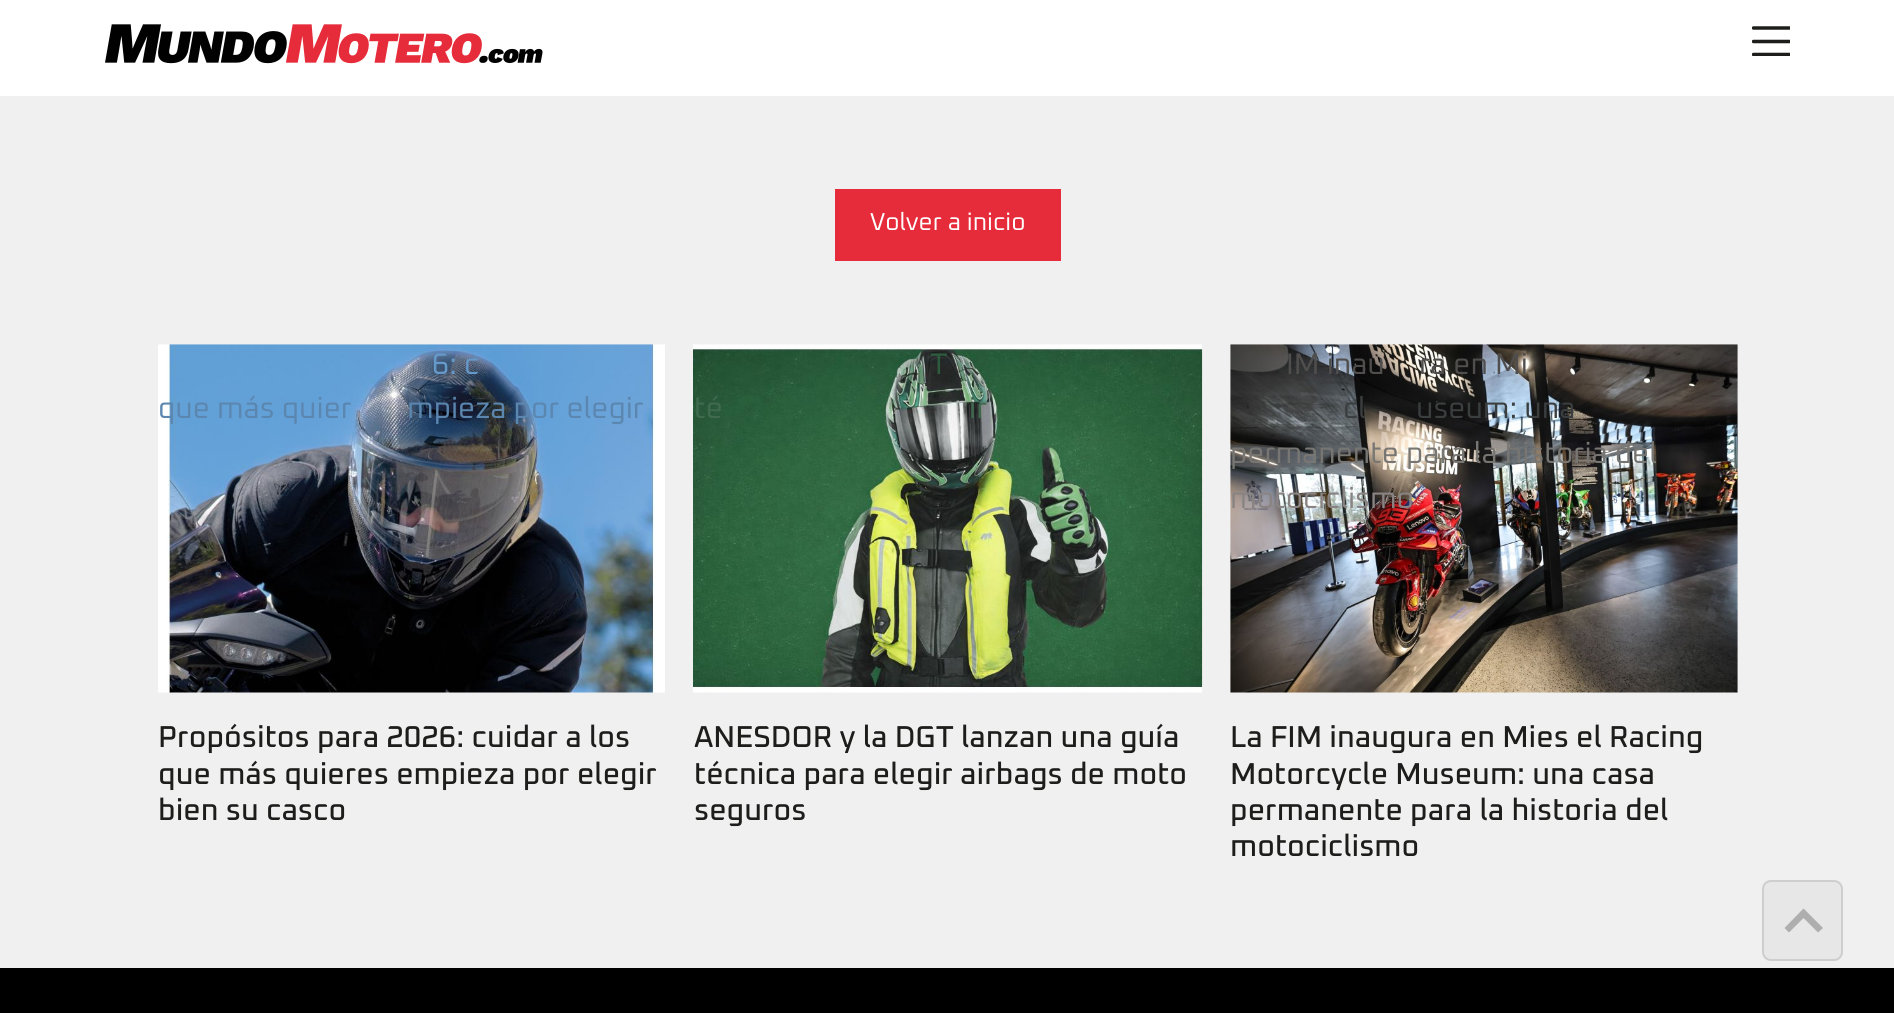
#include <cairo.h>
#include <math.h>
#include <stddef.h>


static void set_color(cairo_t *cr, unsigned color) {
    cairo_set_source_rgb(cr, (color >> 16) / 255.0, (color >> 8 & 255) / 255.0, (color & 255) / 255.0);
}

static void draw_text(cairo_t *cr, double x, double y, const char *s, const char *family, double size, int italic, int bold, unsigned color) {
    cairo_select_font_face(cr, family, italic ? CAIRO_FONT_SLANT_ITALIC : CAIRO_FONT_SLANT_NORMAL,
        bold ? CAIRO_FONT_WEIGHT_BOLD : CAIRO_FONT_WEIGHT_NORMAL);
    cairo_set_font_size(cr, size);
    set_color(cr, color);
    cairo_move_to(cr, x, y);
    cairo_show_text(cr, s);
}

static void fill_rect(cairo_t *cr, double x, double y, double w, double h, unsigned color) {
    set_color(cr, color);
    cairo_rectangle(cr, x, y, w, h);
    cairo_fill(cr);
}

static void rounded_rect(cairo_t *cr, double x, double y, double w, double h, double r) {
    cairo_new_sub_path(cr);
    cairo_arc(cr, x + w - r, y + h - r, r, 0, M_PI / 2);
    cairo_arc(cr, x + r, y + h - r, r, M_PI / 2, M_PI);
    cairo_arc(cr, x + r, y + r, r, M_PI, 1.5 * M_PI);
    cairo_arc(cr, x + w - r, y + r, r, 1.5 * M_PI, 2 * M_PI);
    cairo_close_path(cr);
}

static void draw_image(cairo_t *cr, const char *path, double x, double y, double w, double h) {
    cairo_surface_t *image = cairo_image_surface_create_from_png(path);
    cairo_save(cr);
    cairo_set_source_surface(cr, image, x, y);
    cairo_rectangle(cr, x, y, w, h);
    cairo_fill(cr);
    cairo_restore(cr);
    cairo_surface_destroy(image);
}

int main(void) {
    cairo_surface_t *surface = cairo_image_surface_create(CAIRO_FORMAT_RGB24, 1894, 1013);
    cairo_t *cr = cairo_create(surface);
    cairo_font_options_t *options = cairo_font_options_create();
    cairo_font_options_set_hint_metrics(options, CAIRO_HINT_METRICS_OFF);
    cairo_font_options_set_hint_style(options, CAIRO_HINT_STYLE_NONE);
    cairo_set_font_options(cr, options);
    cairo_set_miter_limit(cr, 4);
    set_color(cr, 0xF1F0F0);
    cairo_paint(cr);
    fill_rect(cr, 0, 0, 1894, 96, 0xFFFFFF);
    draw_image(cr, "assets/img1.png", 105, 24, 438, 40);
    cairo_save(cr);
    cairo_rectangle(cr, 1752, 26, 38, 30);
    cairo_clip(cr);
    cairo_new_path(cr);
    cairo_move_to(cr, 1753.5, 41.5);
    cairo_line_to(cr, 1789.5, 41.5);
    cairo_move_to(cr, 1753.5, 28);
    cairo_line_to(cr, 1789.5, 28);
    cairo_move_to(cr, 1753.5, 54.5);
    cairo_line_to(cr, 1789.5, 54.5);
    set_color(cr, 0x1D1D1B);
    cairo_set_line_width(cr, 3.5);
    cairo_set_line_cap(cr, CAIRO_LINE_CAP_ROUND);
    cairo_stroke(cr);
    cairo_restore(cr);
    fill_rect(cr, 835, 189, 226, 72, 0xE62C3A);
    draw_text(cr, 870, 230, "Volver a inicio", "Oxanium", 24.5, 0, 0, 0xFFFFFF);
    draw_image(cr, "assets/img2.png", 158, 344, 507, 349);
    draw_text(cr, 432, 374, "6: c", "Oxanium", 29.75, 0, 0, 0x6599CA);
    draw_text(cr, 158, 418, "que más quier", "Oxanium", 29.75, 0, 0, 0x5B86AF);
    draw_text(cr, 407, 418, "mpieza por elegir", "Oxanium", 29.75, 0, 0, 0x5B86AF);
    draw_text(cr, 158, 747, "Propósitos para 2026: cuidar a los", "Oxanium Medium", 30.25, 0, 0, 0x1D1D1B);
    draw_text(cr, 158, 784, "que más quieres empieza por elegir", "Oxanium Medium", 30.25, 0, 0, 0x1D1D1B);
    draw_text(cr, 158, 820, "bien su casco", "Oxanium Medium", 30.25, 0, 0, 0x1D1D1B);
    draw_image(cr, "assets/img3.png", 693, 344, 510, 349);
    draw_text(cr, 930, 374, "T", "Oxanium", 29.75, 0, 0, 0x2D5B3D);
    draw_text(cr, 694, 418, "té", "Oxanium", 29.75, 0, 0, 0x3F6A4E);
    draw_text(cr, 969, 418, "ir", "Oxanium", 29.75, 0, 0, 0x3F6A4E);
    draw_text(cr, 694, 747, "ANESDOR y la DGT lanzan una guía", "Oxanium Medium", 30.25, 0, 0, 0x1D1D1B);
    draw_text(cr, 694, 784, "técnica para elegir airbags de moto", "Oxanium Medium", 30.25, 0, 0, 0x1D1D1B);
    draw_text(cr, 694, 820, "seguros", "Oxanium Medium", 30.25, 0, 0, 0x1D1D1B);
    draw_image(cr, "assets/img4.png", 1230, 344, 508, 349);
    draw_text(cr, 1286, 374, "IM inau", "Oxanium", 29.75, 0, 0, 0x504E4D);
    draw_text(cr, 1419, 374, "ra en Mi", "Oxanium", 29.75, 0, 0, 0x504E4D);
    draw_text(cr, 1343, 418, "cl", "Oxanium", 29.75, 0, 0, 0x3B3E3F);
    draw_text(cr, 1416, 418, "useum: una", "Oxanium", 29.75, 0, 0, 0x3B3E3F);
    draw_text(cr, 1230, 463, "permanente para la historia del", "Oxanium", 29.75, 0, 0, 0x777673);
    draw_text(cr, 1230, 508, "motociclismo", "Oxanium", 29.75, 0, 0, 0x898483);
    draw_text(cr, 1230, 747, "La FIM inaugura en Mies el Racing", "Oxanium Medium", 30.25, 0, 0, 0x1D1D1B);
    draw_text(cr, 1230, 784, "Motorcycle Museum: una casa", "Oxanium Medium", 30.25, 0, 0, 0x1D1D1B);
    draw_text(cr, 1230, 820, "permanente para la historia del", "Oxanium Medium", 30.25, 0, 0, 0x1D1D1B);
    draw_text(cr, 1230, 856, "motociclismo", "Oxanium Medium", 30.25, 0, 0, 0x1D1D1B);
    set_color(cr, 0xE8E7E7);
    rounded_rect(cr, 1762, 880, 81, 81, 9);
    cairo_fill(cr);
    rounded_rect(cr, 1763, 881, 79, 79, 8);
    cairo_set_source_rgba(cr, 0, 0, 0, 0.11);
    cairo_stroke(cr);
    set_color(cr, 0xAEAEAE);
    cairo_new_path(cr);
    cairo_move_to(cr, 1784.5, 928);
    cairo_line_to(cr, 1789, 932.5);
    cairo_line_to(cr, 1803.5, 918);
    cairo_line_to(cr, 1818, 932.5);
    cairo_line_to(cr, 1823, 928);
    cairo_line_to(cr, 1803.5, 908.5);
    cairo_close_path(cr);
    cairo_fill(cr);
    fill_rect(cr, 0, 968, 1894, 45, 0x000000);
    cairo_surface_write_to_png(surface, "output.png");
    cairo_font_options_destroy(options);
    cairo_destroy(cr);
    cairo_surface_destroy(surface);
    return 0;
}
